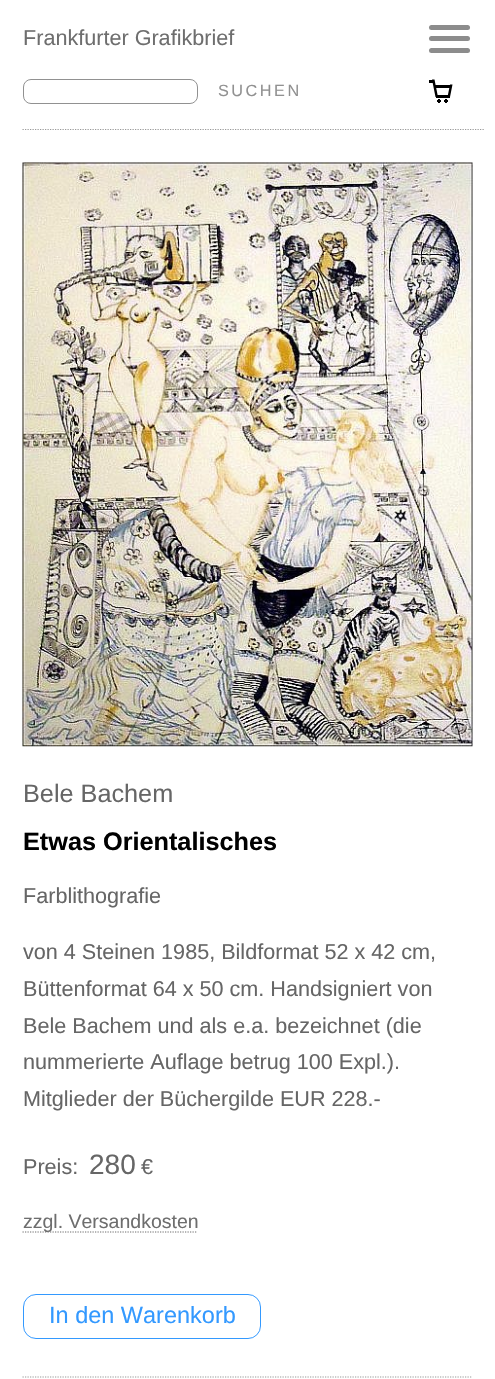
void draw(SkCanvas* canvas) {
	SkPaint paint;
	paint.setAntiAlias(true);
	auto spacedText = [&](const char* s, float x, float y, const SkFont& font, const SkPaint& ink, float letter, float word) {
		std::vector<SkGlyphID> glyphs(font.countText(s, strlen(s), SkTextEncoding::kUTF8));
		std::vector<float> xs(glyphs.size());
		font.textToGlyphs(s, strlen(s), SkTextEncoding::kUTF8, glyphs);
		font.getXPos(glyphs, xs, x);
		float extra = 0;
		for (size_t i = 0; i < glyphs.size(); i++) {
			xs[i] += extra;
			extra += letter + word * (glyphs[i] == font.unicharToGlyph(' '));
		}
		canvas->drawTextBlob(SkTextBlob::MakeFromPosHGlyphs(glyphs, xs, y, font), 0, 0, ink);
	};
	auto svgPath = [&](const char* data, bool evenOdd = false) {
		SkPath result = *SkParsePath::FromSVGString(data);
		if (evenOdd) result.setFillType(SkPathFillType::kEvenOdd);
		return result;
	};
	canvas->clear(0xffffffff);
	paint.setStroke(true);
	paint.setStrokeWidth(1.2);
	paint.setColor(0xff999999);
	paint.setPathEffect(SkDashPathEffect::Make({{1.25f, 1.25f}}, 0));
	canvas->drawPath(svgPath("M22.5 129.5H485"), paint);
	paint.setPathEffect(nullptr);
	SkFont f1(fontMgr->matchFamilyStyle("Liberation Sans", SkFontStyle::Normal()), 21.6);
	f1.setSubpixel(true);
	paint.setStroke(false);
	paint.setColor(0xff6e6e6e);
	canvas->drawString("Frankfurter Grafikbrief", 23, 45, f1, paint);
	paint.setColor(0xff8c8c8c);
	canvas->drawRoundRect(SkRect::MakeXYWH(429, 25, 41, 5), 2.5, 2.5, paint);
	canvas->drawRoundRect(SkRect::MakeXYWH(429, 36, 41, 5), 2.5, 2.5, paint);
	canvas->drawRoundRect(SkRect::MakeXYWH(429, 48, 41, 5), 2.5, 2.5, paint);
	paint.setStroke(true);
	paint.setStrokeWidth(1);
	paint.setColor(0xff919191);
	canvas->drawRoundRect(SkRect::MakeXYWH(23.5, 79.5, 174, 24), 7.5, 7.5, paint);
	SkFont f2(fontMgr->matchFamilyStyle("Liberation Sans", SkFontStyle::Normal()), 16.25);
	f2.setSubpixel(true);
	paint.setStroke(false);
	spacedText("SUCHEN", 218, 96, f2, paint, 2.5, 0);
	{
		const SkColor colors[] = {0xff000000, 0xffffffff};
		const float stops[] = {0.6, 0.6};
		paint.setShader(SkGradientShader::MakeRadial({439, 101}, 3.5, colors, stops, 2, SkTileMode::kClamp));
		paint.setAlpha(255);
	}
	canvas->drawRect(SkRect::MakeXYWH(436, 99, 5, 4), paint);
	{
		const SkColor colors[] = {0xff000000, 0xffffffff};
		const float stops[] = {0.6, 0.6};
		paint.setShader(SkGradientShader::MakeRadial({446, 101}, 3.5, colors, stops, 2, SkTileMode::kClamp));
		paint.setAlpha(255);
	}
	canvas->drawRect(SkRect::MakeXYWH(444, 99, 5, 4), paint);
	paint.setShader(nullptr);
	paint.setColor(0xff000000);
	canvas->drawRect(SkRect::MakeXYWH(429, 80, 5, 3), paint);
	canvas->drawRect(SkRect::MakeXYWH(436, 95, 14, 3), paint);
	canvas->drawRect(SkRect::MakeXYWH(435, 85, 15, 3), paint);
	canvas->drawPath(svgPath("M432 79.5H434.5L438 97H435.5ZM450 84.5H452.5L450 97H447.5Z"), paint);
	canvas->drawImageRect(SkImages::DeferredFromEncodedData(SkData::MakeFromFileName("img1.png")), SkRect::MakeXYWH(22, 162, 451, 585), SkSamplingOptions());
	SkFont f3(fontMgr->matchFamilyStyle("Liberation Sans", SkFontStyle::Normal()), 25.25);
	f3.setSubpixel(true);
	paint.setColor(0xff666666);
	canvas->drawString("Bele Bachem", 23, 802, f3, paint);
	SkFont f4(fontMgr->matchFamilyStyle("Liberation Sans", SkFontStyle::Bold()), 25.25);
	f4.setSubpixel(true);
	paint.setColor(0xff000000);
	canvas->drawString("Etwas Orientalisches", 23, 850, f4, paint);
	paint.setColor(0xff666666);
	canvas->drawString("Farblithografie", 23, 903, f1, paint);
	canvas->drawString("von 4 Steinen 1985, Bildformat 52 x 42 cm,", 23, 959, f1, paint);
	canvas->drawString("Büttenformat 64 x 50 cm. Handsigniert von", 23, 996, f1, paint);
	canvas->drawString("Bele Bachem und als e.a. bezeichnet (die", 23, 1033, f1, paint);
	canvas->drawString("nummerierte Auflage betrug 100 Expl.).", 23, 1069, f1, paint);
	canvas->drawString("Mitglieder der Büchergilde EUR 228.-", 23, 1106, f1, paint);
	paint.setStroke(true);
	paint.setStrokeWidth(1.2);
	paint.setColor(0xff999999);
	paint.setPathEffect(SkDashPathEffect::Make({{1.25f, 1.25f}}, 0));
	canvas->drawPath(svgPath("M22.5 1377H472.5"), paint);
	paint.setPathEffect(nullptr);
	paint.setStroke(false);
	paint.setColor(0xff666666);
	canvas->drawString("Preis:", 23, 1174, f1, paint);
	SkFont f5(fontMgr->matchFamilyStyle("Liberation Sans", SkFontStyle::Normal()), 28);
	f5.setSubpixel(true);
	canvas->drawString("280", 89, 1174, f5, paint);
	canvas->drawString("€", 141, 1174, f1, paint);
	paint.setStroke(true);
	paint.setColor(0xff6e6e6e);
	paint.setPathEffect(SkDashPathEffect::Make({{1.25f, 1.25f}}, 0));
	canvas->drawPath(svgPath("M22.5 1232H197.5"), paint);
	paint.setPathEffect(nullptr);
	SkFont f6(fontMgr->matchFamilyStyle("Liberation Sans", SkFontStyle::Normal()), 19.5);
	f6.setSubpixel(true);
	paint.setStroke(false);
	canvas->drawString("zzgl. Versandkosten", 23, 1228, f6, paint);
	paint.setStroke(true);
	paint.setStrokeWidth(1);
	paint.setColor(0xff3399ff);
	canvas->drawRoundRect(SkRect::MakeXYWH(23.5, 1294.5, 237, 44), 12.5, 12.5, paint);
	SkFont f7(fontMgr->matchFamilyStyle("Liberation Sans", SkFontStyle::Normal()), 23.5);
	f7.setSubpixel(true);
	paint.setStroke(false);
	canvas->drawString("In den Warenkorb", 49, 1323, f7, paint);
}
